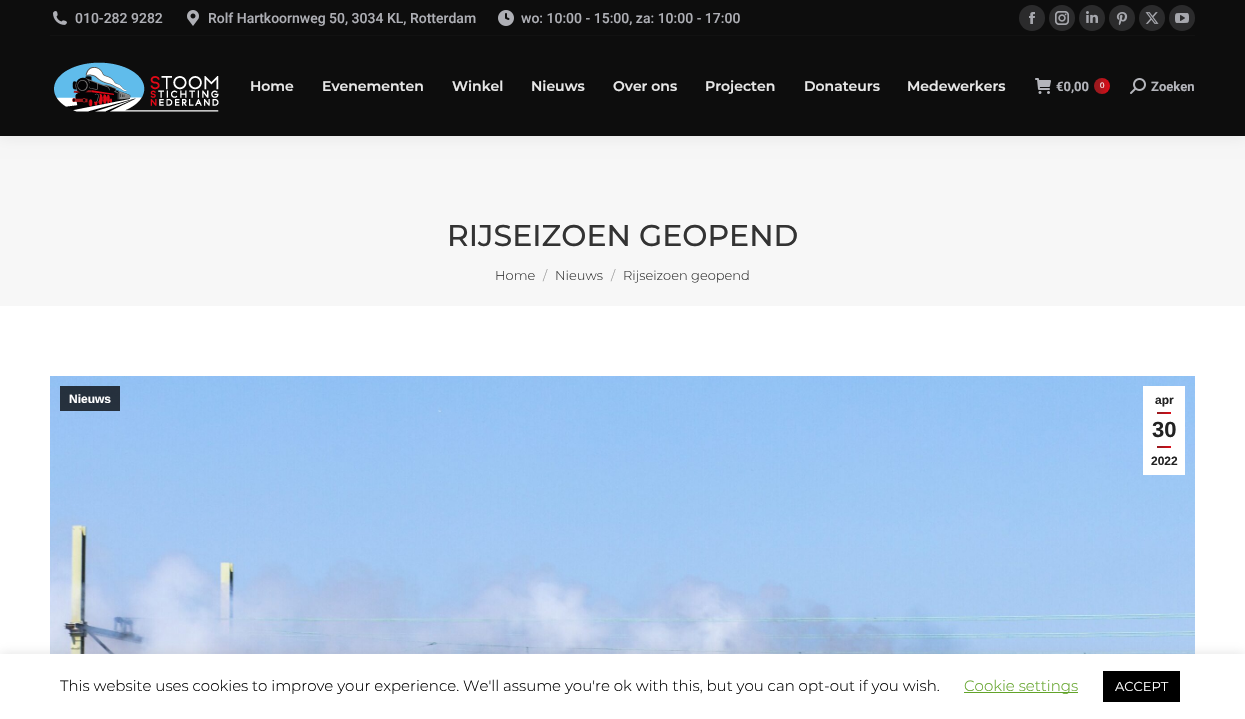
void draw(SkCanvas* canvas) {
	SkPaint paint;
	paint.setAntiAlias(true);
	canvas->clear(0xffffffff);
	paint.setColor(0xfff7f7f7);
	canvas->drawRect(SkRect::MakeXYWH(0, 136, 1245, 170), paint);
	paint.setColor(0x12000000);
	paint.setMaskFilter(SkMaskFilter::MakeBlur(kNormal_SkBlurStyle, 7.5));
	canvas->drawRect(SkRect::MakeXYWH(-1, -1, 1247, 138), paint);
	paint.setMaskFilter(nullptr);
	paint.setColor(0xff0d0d0d);
	canvas->drawRect(SkRect::MakeXYWH(0, 0, 1245, 136), paint);
	canvas->drawImageRect(SkImages::DeferredFromEncodedData(SkData::MakeFromFileName("img1.png")), SkRect::MakeXYWH(53, 11, 14, 14), SkSamplingOptions());
	SkFont f1(fontMgr->matchFamilyStyle("Roboto", SkFontStyle(500, SkFontStyle::kNormal_Width, SkFontStyle::kUpright_Slant)), 14);
	f1.setSubpixel(true);
	paint.setColor(0xffaeafb5);
	canvas->drawString("010-282 9282", 75, 23, f1, paint);
	canvas->drawImageRect(SkImages::DeferredFromEncodedData(SkData::MakeFromFileName("img2.png")), SkRect::MakeXYWH(187, 10, 12, 16), SkSamplingOptions());
	canvas->drawString("Rolf Hartkoornweg 50, 3034 KL, Rotterdam", 208, 23, f1, paint);
	canvas->drawImageRect(SkImages::DeferredFromEncodedData(SkData::MakeFromFileName("img3.png")), SkRect::MakeXYWH(498, 10, 16, 16), SkSamplingOptions());
	canvas->drawString("wo: 10:00 - 15:00, za: 10:00 - 17:00", 521, 23, f1, paint);
	paint.setColor(0xff2b2b2c);
	canvas->drawCircle(1032, 18, 13, paint);
	canvas->drawImageRect(SkImages::DeferredFromEncodedData(SkData::MakeFromFileName("img4.png")), SkRect::MakeXYWH(1029, 12, 6, 12), SkSamplingOptions());
	canvas->drawCircle(1062, 18, 13, paint);
	canvas->drawImageRect(SkImages::DeferredFromEncodedData(SkData::MakeFromFileName("img5.png")), SkRect::MakeXYWH(1055, 11, 14, 14), SkSamplingOptions());
	canvas->drawCircle(1092, 18, 13, paint);
	canvas->drawImageRect(SkImages::DeferredFromEncodedData(SkData::MakeFromFileName("img6.png")), SkRect::MakeXYWH(1086, 11, 12, 12), SkSamplingOptions());
	canvas->drawCircle(1122, 18, 13, paint);
	canvas->drawImageRect(SkImages::DeferredFromEncodedData(SkData::MakeFromFileName("img7.png")), SkRect::MakeXYWH(1116, 12, 12, 13), SkSamplingOptions());
	canvas->drawCircle(1152, 18, 13, paint);
	canvas->drawImageRect(SkImages::DeferredFromEncodedData(SkData::MakeFromFileName("img8.png")), SkRect::MakeXYWH(1145, 12, 14, 12), SkSamplingOptions());
	canvas->drawCircle(1182, 18, 13, paint);
	canvas->drawImageRect(SkImages::DeferredFromEncodedData(SkData::MakeFromFileName("img9.png")), SkRect::MakeXYWH(1175, 13, 14, 10), SkSamplingOptions());
	paint.setColor(0xff121212);
	canvas->drawRect(SkRect::MakeXYWH(50, 35, 1145, 1), paint);
	canvas->drawImageRect(SkImages::DeferredFromEncodedData(SkData::MakeFromFileName("img10.png")), SkRect::MakeXYWH(54, 62, 165, 50), SkSamplingOptions());
	SkFont f2(fontMgr->matchFamilyStyle("Montserrat", SkFontStyle(600, SkFontStyle::kNormal_Width, SkFontStyle::kUpright_Slant)), 14);
	f2.setSubpixel(true);
	paint.setColor(0xffe8e8e8);
	canvas->drawString("Home", 250, 91, f2, paint);
	canvas->drawString("Evenementen", 322, 91, f2, paint);
	canvas->drawString("Winkel", 452, 91, f2, paint);
	canvas->drawString("Nieuws", 531, 91, f2, paint);
	canvas->drawString("Over ons", 613, 91, f2, paint);
	canvas->drawString("Projecten", 705, 91, f2, paint);
	canvas->drawString("Donateurs", 804, 91, f2, paint);
	canvas->drawString("Medewerkers", 907, 91, f2, paint);
	canvas->drawImageRect(SkImages::DeferredFromEncodedData(SkData::MakeFromFileName("img11.png")), SkRect::MakeXYWH(1035, 78, 16, 16), SkSamplingOptions());
	SkFont f3(fontMgr->matchFamilyStyle("Roboto", SkFontStyle::Bold()), 13);
	f3.setSubpixel(true);
	paint.setColor(0xffb4b5bb);
	canvas->drawString("€0,00", 1056, 91, f3, paint);
	{
		const SkColor colors[] = {0xff9e191e, 0xffe30b17};
		const float stops[] = {0.3, 1};
		const SkPoint ends[] = {{1094, 86}, {1110, 86}};
		paint.setShader(SkGradientShader::MakeLinear(ends, colors, stops, 2, SkTileMode::kClamp));
		paint.setAlpha(255);
	}
	canvas->drawCircle(1102, 86, 8, paint);
	SkFont f4(fontMgr->matchFamilyStyle("Liberation Sans", SkFontStyle::Normal()), 8);
	f4.setSubpixel(true);
	paint.setShader(nullptr);
	paint.setColor(0xffffffff);
	canvas->drawString("0", 1100, 88, f4, paint);
	canvas->drawImageRect(SkImages::DeferredFromEncodedData(SkData::MakeFromFileName("img12.png")), SkRect::MakeXYWH(1130, 78, 16, 16), SkSamplingOptions());
	paint.setColor(0xffb4b5bb);
	canvas->drawString("Zoeken", 1151, 91, f3, paint);
	SkFont f5(fontMgr->matchFamilyStyle("Montserrat", SkFontStyle(500, SkFontStyle::kNormal_Width, SkFontStyle::kUpright_Slant)), 30);
	f5.setSubpixel(true);
	paint.setColor(0xff333333);
	canvas->drawString("RIJSEIZOEN GEOPEND", 447, 246, f5, paint);
	SkFont f6(fontMgr->matchFamilyStyle("Montserrat", SkFontStyle(300, SkFontStyle::kNormal_Width, SkFontStyle::kUpright_Slant)), 13);
	f6.setSubpixel(true);
	canvas->drawString("Home", 495, 280, f6, paint);
	paint.setColor(0xff959595);
	canvas->drawString("/", 543, 280, f6, paint);
	paint.setColor(0xff333333);
	canvas->drawString("Nieuws", 555, 280, f6, paint);
	paint.setColor(0xff959595);
	canvas->drawString("/", 611, 280, f6, paint);
	paint.setColor(0xff333333);
	canvas->drawString("Rijseizoen geopend", 623, 280, f6, paint);
	canvas->drawImageRect(SkImages::DeferredFromEncodedData(SkData::MakeFromFileName("img13.png")), SkRect::MakeXYWH(50, 376, 1145, 278), SkSamplingOptions());
	paint.setColor(0xbf000000);
	canvas->drawRect(SkRect::MakeXYWH(60, 386, 60, 25), paint);
	SkFont f7(fontMgr->matchFamilyStyle("Liberation Sans", SkFontStyle::Bold()), 12);
	f7.setSubpixel(true);
	paint.setColor(0xffffffff);
	canvas->drawString("Nieuws", 69, 403, f7, paint);
	canvas->drawRect(SkRect::MakeXYWH(1143, 386, 42, 89), paint);
	paint.setColor(0xff222222);
	canvas->drawString("apr", 1155, 404, f7, paint);
	{
		const SkColor colors[] = {0xff9e191e, 0xffe30b17};
		const float stops[] = {0.3, 1};
		const SkPoint ends[] = {{1160, 409}, {1168, 417}};
		paint.setShader(SkGradientShader::MakeLinear(ends, colors, stops, 2, SkTileMode::kClamp));
		paint.setAlpha(255);
	}
	canvas->drawRect(SkRect::MakeXYWH(1157, 412, 14, 2), paint);
	SkFont f8(fontMgr->matchFamilyStyle("Liberation Sans", SkFontStyle::Bold()), 22);
	f8.setSubpixel(true);
	paint.setShader(nullptr);
	paint.setColor(0xff222222);
	canvas->drawString("30", 1152, 437, f8, paint);
	{
		const SkColor colors[] = {0xff9e191e, 0xffe30b17};
		const float stops[] = {0.3, 1};
		const SkPoint ends[] = {{1160, 443}, {1168, 451}};
		paint.setShader(SkGradientShader::MakeLinear(ends, colors, stops, 2, SkTileMode::kClamp));
		paint.setAlpha(255);
	}
	canvas->drawRect(SkRect::MakeXYWH(1157, 446, 14, 2), paint);
	paint.setShader(nullptr);
	paint.setColor(0xff222222);
	canvas->drawString("2022", 1151, 465, f7, paint);
	paint.setColor(0x4dacabab);
	paint.setMaskFilter(SkMaskFilter::MakeBlur(kNormal_SkBlurStyle, 5));
	canvas->drawRect(SkRect::MakeXYWH(0, 653, 1245, 65), paint);
	paint.setMaskFilter(nullptr);
	paint.setColor(0xffffffff);
	canvas->drawRect(SkRect::MakeXYWH(0, 654, 1245, 65), paint);
	SkFont f9(fontMgr->matchFamilyStyle("Montserrat", SkFontStyle(300, SkFontStyle::kNormal_Width, SkFontStyle::kUpright_Slant)), 15);
	f9.setSubpixel(true);
	paint.setColor(0xff000000);
	canvas->drawString("This website uses cookies to improve your experience. We'll assume you're ok with this, but you can opt-out if you wish.", 60, 691, f9, paint);
	paint.setColor(0xff62a329);
	canvas->drawRect(SkRect::MakeXYWH(964, 692, 114, 1), paint);
	canvas->drawString("Cookie settings", 964, 691, f9, paint);
	paint.setColor(0xff000000);
	canvas->drawRect(SkRect::MakeXYWH(1103, 671, 77, 31), paint);
	SkFont f10(fontMgr->matchFamilyStyle("Montserrat", SkFontStyle::Normal()), 13);
	f10.setSubpixel(true);
	paint.setColor(0xffffffff);
	canvas->drawString("ACCEPT", 1115, 691, f10, paint);
}
